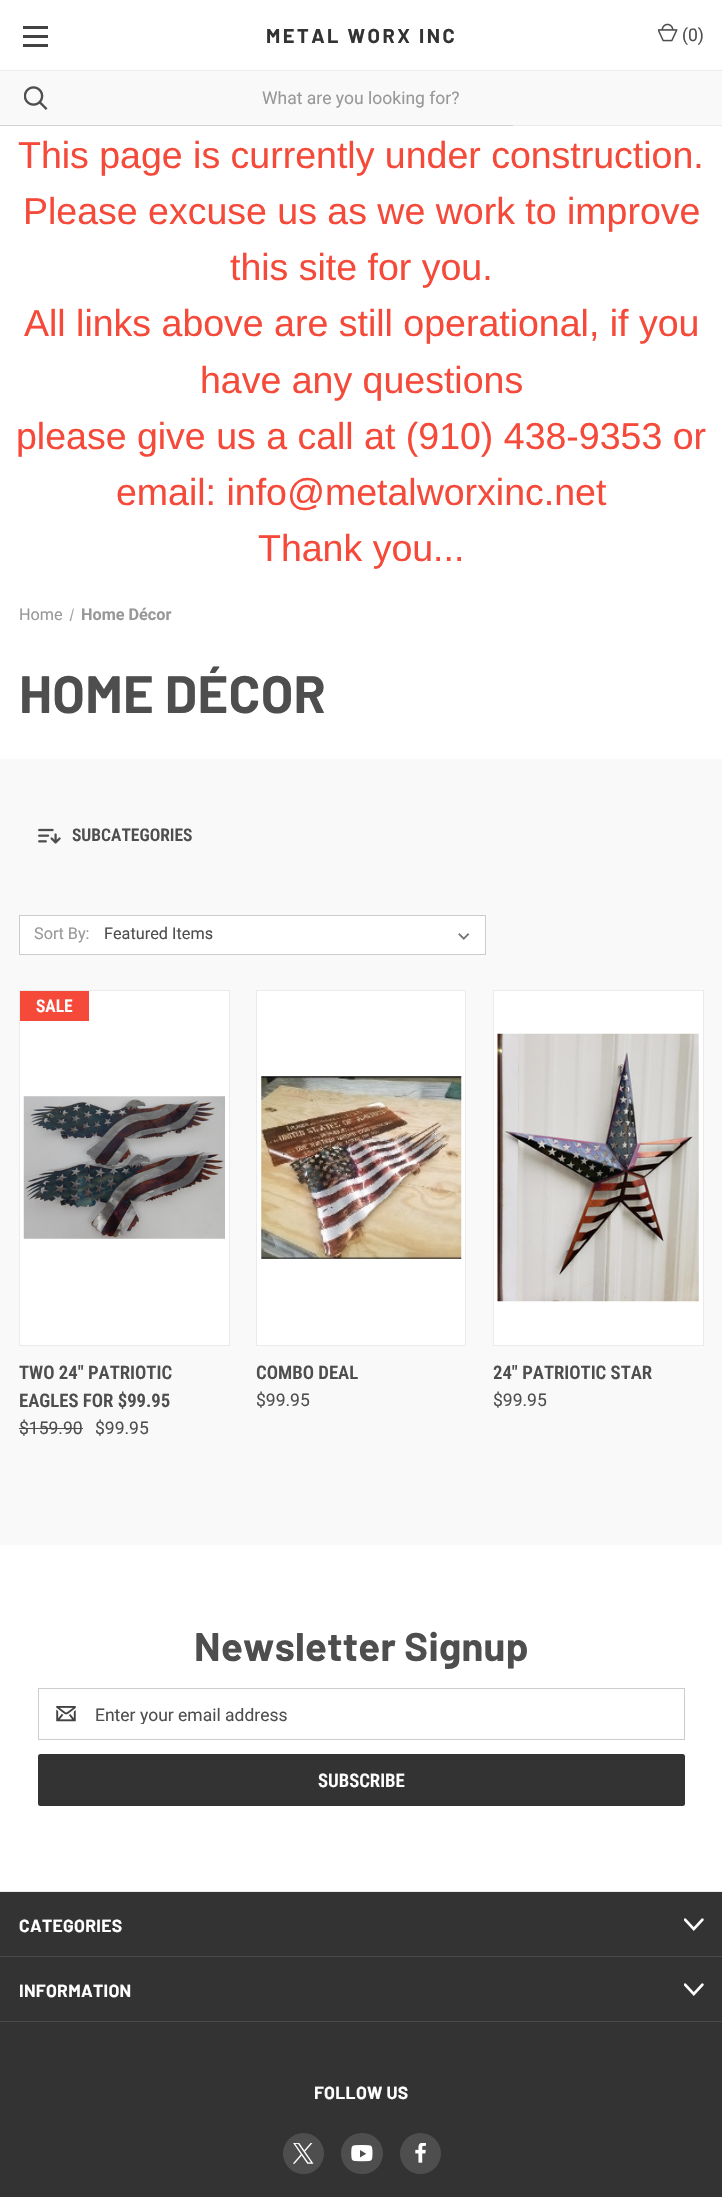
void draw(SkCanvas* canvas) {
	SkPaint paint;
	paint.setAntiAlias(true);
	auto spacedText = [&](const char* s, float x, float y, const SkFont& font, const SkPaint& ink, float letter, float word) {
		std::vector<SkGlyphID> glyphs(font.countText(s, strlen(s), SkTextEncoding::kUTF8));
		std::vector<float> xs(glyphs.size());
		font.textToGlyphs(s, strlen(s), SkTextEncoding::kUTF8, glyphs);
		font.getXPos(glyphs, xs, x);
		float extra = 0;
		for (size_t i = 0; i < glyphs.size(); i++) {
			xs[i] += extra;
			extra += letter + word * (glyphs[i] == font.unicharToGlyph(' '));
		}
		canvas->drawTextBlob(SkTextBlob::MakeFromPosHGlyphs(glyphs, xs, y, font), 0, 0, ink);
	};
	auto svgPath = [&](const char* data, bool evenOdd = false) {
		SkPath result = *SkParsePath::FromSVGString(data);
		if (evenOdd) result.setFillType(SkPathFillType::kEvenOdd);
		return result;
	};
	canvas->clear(0xffffffff);
	paint.setColor(0xffebebeb);
	canvas->drawRect(SkRect::MakeXYWH(513, 125, 209, 1), paint);
	paint.setColor(0xff424242);
	canvas->drawRect(SkRect::MakeXYWH(23, 35, 25, 3), paint);
	canvas->drawRect(SkRect::MakeXYWH(23, 26, 25, 3), paint);
	canvas->drawRect(SkRect::MakeXYWH(23, 44, 25, 3), paint);
	SkFont f1(fontMgr->matchFamilyStyle("Barlow", SkFontStyle::Bold()), 20);
	f1.setSubpixel(true);
	paint.setColor(0xff333333);
	spacedText("METAL WORX INC", 266, 43, f1, paint, 2.5, 0);
	canvas->drawImageRect(SkImages::DeferredFromEncodedData(SkData::MakeFromFileName("img1.png")), SkRect::MakeXYWH(658, 23, 20, 19), SkSamplingOptions());
	SkFont f2(fontMgr->matchFamilyStyle("Roboto", SkFontStyle::Normal()), 17.5);
	f2.setSubpixel(true);
	paint.setColor(0xff4e4e4e);
	canvas->drawString("(0)", 682, 41, f2, paint);
	paint.setColor(0xfff9f9f9);
	canvas->drawRect(SkRect::MakeXYWH(0, 71, 722, 54), paint);
	canvas->drawImageRect(SkImages::DeferredFromEncodedData(SkData::MakeFromFileName("img2.png")), SkRect::MakeXYWH(24, 86, 24, 24), SkSamplingOptions());
	paint.setColor(0xffebebeb);
	canvas->drawRect(SkRect::MakeXYWH(0, 70, 722, 1), paint);
	paint.setColor(0xff989898);
	canvas->drawString("What are you looking for?", 262, 104, f2, paint);
	paint.setColor(0xffd2d2d2);
	canvas->drawRect(SkRect::MakeXYWH(0, 125, 513, 1), paint);
	SkFont f3(fontMgr->matchFamilyStyle("Liberation Sans", SkFontStyle::Normal()), 37.5);
	f3.setSubpixel(true);
	paint.setColor(0xfff54a3a);
	canvas->drawString("This page is currently under construction.", 18, 168, f3, paint);
	canvas->drawString("Please excuse us as we work to improve", 23, 224, f3, paint);
	canvas->drawString("this site for you.", 230, 280, f3, paint);
	canvas->drawString("All links above are still operational, if you", 24, 336, f3, paint);
	canvas->drawString("have any questions", 200, 393, f3, paint);
	canvas->drawString("please give us a call at (910) 438-9353 or", 16, 449, f3, paint);
	canvas->drawString("email: info@metalworxinc.net", 116, 505, f3, paint);
	canvas->drawString("Thank you...", 258, 561, f3, paint);
	SkFont f4(fontMgr->matchFamilyStyle("Roboto", SkFontStyle::Normal()), 16.25);
	f4.setSubpixel(true);
	paint.setColor(0xff989898);
	canvas->drawString("Home", 19, 620, f4, paint);
	paint.setColor(0xffa3a3a3);
	canvas->drawPath(svgPath("M73 608.5H74L71 621H69.5Z"), paint);
	SkFont f5(fontMgr->matchFamilyStyle("Roboto", SkFontStyle::Bold()), 16.25);
	f5.setSubpixel(true);
	paint.setColor(0xff989898);
	canvas->drawString("Home Décor", 81, 620, f5, paint);
	SkFont f6(fontMgr->matchFamilyStyle("Barlow", SkFontStyle::Bold()), 52.5);
	f6.setSubpixel(true);
	paint.setColor(0xff4e4e4e);
	spacedText("HOME DÉCOR", 19, 713, f6, paint, 0.3, 0);
	paint.setColor(0xfff9f9f9);
	canvas->drawRect(SkRect::MakeXYWH(0, 759, 722, 786), paint);
	canvas->drawImageRect(SkImages::DeferredFromEncodedData(SkData::MakeFromFileName("img3.png")), SkRect::MakeXYWH(38, 828, 23, 16), SkSamplingOptions());
	SkFont f7(fontMgr->matchFamilyStyle("Roboto Condensed", SkFontStyle(600, SkFontStyle::kNormal_Width, SkFontStyle::kUpright_Slant)), 17.5);
	f7.setSubpixel(true);
	paint.setColor(0xff4e4e4e);
	canvas->drawString("SUBCATEGORIES", 72, 841, f7, paint);
	paint.setColor(0xffffffff);
	canvas->drawRect(SkRect::MakeXYWH(19.5, 915.5, 466, 39), paint);
	paint.setStroke(true);
	paint.setStrokeWidth(1);
	paint.setColor(0xffcccccc);
	canvas->drawRect(SkRect::MakeXYWH(19.5, 915.5, 466, 39), paint);
	paint.setStroke(false);
	paint.setColor(0xff989898);
	canvas->drawString("Sort By:", 34, 939, f4, paint);
	canvas->drawImageRect(SkImages::DeferredFromEncodedData(SkData::MakeFromFileName("img4.png")), SkRect::MakeXYWH(458, 933, 12, 7), SkSamplingOptions());
	paint.setColor(0xff4e4e4e);
	canvas->drawString("Featured Items", 104, 939, f4, paint);
	paint.setColor(0xffffffff);
	canvas->drawRect(SkRect::MakeXYWH(19.5, 990.5, 210, 355), paint);
	paint.setStroke(true);
	paint.setColor(0xffebebeb);
	canvas->drawRect(SkRect::MakeXYWH(19.5, 990.5, 210, 355), paint);
	paint.setStroke(false);
	paint.setColor(0xfff54a3a);
	canvas->drawRect(SkRect::MakeXYWH(20, 991, 69, 30), paint);
	paint.setColor(0xffffffff);
	canvas->drawString("SALE", 36, 1012, f7, paint);
	canvas->drawImageRect(SkImages::DeferredFromEncodedData(SkData::MakeFromFileName("img5.png")), SkRect::MakeXYWH(23, 1096, 202, 143), SkSamplingOptions());
	SkFont f8(fontMgr->matchFamilyStyle("Roboto Condensed", SkFontStyle(600, SkFontStyle::kNormal_Width, SkFontStyle::kUpright_Slant)), 18.75);
	f8.setSubpixel(true);
	paint.setColor(0xff4e4e4e);
	canvas->drawString("TWO 24\" PATRIOTIC", 19, 1379, f8, paint);
	canvas->drawString("EAGLES FOR $99.95", 19, 1407, f8, paint);
	canvas->drawString("$159.90", 19, 1434, f2, paint);
	canvas->drawRect(SkRect::MakeXYWH(19, 1428, 64, 1), paint);
	canvas->drawString("$99.95", 95, 1434, f2, paint);
	paint.setColor(0xffffffff);
	canvas->drawRect(SkRect::MakeXYWH(256.5, 990.5, 209, 355), paint);
	paint.setStroke(true);
	paint.setColor(0xffebebeb);
	canvas->drawRect(SkRect::MakeXYWH(256.5, 990.5, 209, 355), paint);
	canvas->drawImageRect(SkImages::DeferredFromEncodedData(SkData::MakeFromFileName("img6.png")), SkRect::MakeXYWH(261, 1076, 201, 183), SkSamplingOptions());
	paint.setStroke(false);
	paint.setColor(0xff4e4e4e);
	canvas->drawString("COMBO DEAL", 256, 1379, f8, paint);
	canvas->drawString("$99.95", 256, 1406, f2, paint);
	paint.setColor(0xffffffff);
	canvas->drawRect(SkRect::MakeXYWH(493.5, 990.5, 210, 355), paint);
	paint.setStroke(true);
	paint.setColor(0xffebebeb);
	canvas->drawRect(SkRect::MakeXYWH(493.5, 990.5, 210, 355), paint);
	canvas->drawImageRect(SkImages::DeferredFromEncodedData(SkData::MakeFromFileName("img7.png")), SkRect::MakeXYWH(497, 1033, 202, 269), SkSamplingOptions());
	paint.setStroke(false);
	paint.setColor(0xff4e4e4e);
	canvas->drawString("24\" PATRIOTIC STAR", 493, 1379, f8, paint);
	canvas->drawString("$99.95", 493, 1406, f2, paint);
	SkFont f9(fontMgr->matchFamilyStyle("Barlow", SkFontStyle::Bold()), 40);
	f9.setSubpixel(true);
	spacedText("Newsletter Signup", 194, 1661, f9, paint, 0.3, 0);
	paint.setStroke(true);
	paint.setColor(0xffcccccc);
	canvas->drawRect(SkRect::MakeXYWH(38.5, 1688.5, 646, 51), paint);
	canvas->drawImageRect(SkImages::DeferredFromEncodedData(SkData::MakeFromFileName("img8.png")), SkRect::MakeXYWH(56, 1706, 20, 16), SkSamplingOptions());
	canvas->save();
	canvas->clipRect(SkRect::MakeXYWH(95, 1704, 571, 20));
	paint.setStroke(false);
	paint.setColor(0xff4e4e4e);
	canvas->drawString("Enter your email address", 95, 1721, f2, paint);
	canvas->restore();
	paint.setColor(0xff333333);
	canvas->drawRoundRect(SkRect::MakeXYWH(38, 1754, 647, 52), 2.5, 2.5, paint);
	paint.setColor(0xffffffff);
	canvas->drawString("SUBSCRIBE", 318, 1787, f8, paint);
	paint.setColor(0xff333333);
	canvas->drawRect(SkRect::MakeXYWH(0, 1892, 722, 305), paint);
	paint.setColor(0xffebebeb);
	canvas->drawRect(SkRect::MakeXYWH(0, 1891, 722, 1), paint);
	paint.setColor(0xff4a4a4a);
	canvas->drawRect(SkRect::MakeXYWH(0, 1956, 722, 1), paint);
	SkFont f10(fontMgr->matchFamilyStyle("Barlow", SkFontStyle::Bold()), 17.5);
	f10.setSubpixel(true);
	paint.setColor(0xffffffff);
	spacedText("CATEGORIES", 19, 1932, f10, paint, 0.3, 0);
	canvas->drawImageRect(SkImages::DeferredFromEncodedData(SkData::MakeFromFileName("img9.png")), SkRect::MakeXYWH(684, 1918, 20, 13), SkSamplingOptions());
	paint.setColor(0xff4a4a4a);
	canvas->drawRect(SkRect::MakeXYWH(0, 2021, 722, 1), paint);
	paint.setColor(0xffffffff);
	spacedText("INFORMATION", 19, 1997, f10, paint, 0.3, 0);
	canvas->drawImageRect(SkImages::DeferredFromEncodedData(SkData::MakeFromFileName("img9.png")), SkRect::MakeXYWH(684, 1983, 20, 13), SkSamplingOptions());
	spacedText("FOLLOW US", 314, 2099, f10, paint, 0.3, 0);
	paint.setColor(0xff4e4e4e);
	canvas->drawCircle(303.5, 2153.5, 20.5, paint);
	canvas->drawImageRect(SkImages::DeferredFromEncodedData(SkData::MakeFromFileName("img10.png")), SkRect::MakeXYWH(293, 2143, 21, 21), SkSamplingOptions());
	canvas->drawRoundRect(SkRect::MakeXYWH(341, 2133, 42, 41), 20.5, 20.5, paint);
	canvas->drawImageRect(SkImages::DeferredFromEncodedData(SkData::MakeFromFileName("img11.png")), SkRect::MakeXYWH(351, 2145, 22, 17), SkSamplingOptions());
	canvas->drawCircle(420.5, 2153.5, 20.5, paint);
	canvas->drawImageRect(SkImages::DeferredFromEncodedData(SkData::MakeFromFileName("img12.png")), SkRect::MakeXYWH(415, 2143, 11, 20), SkSamplingOptions());
}
